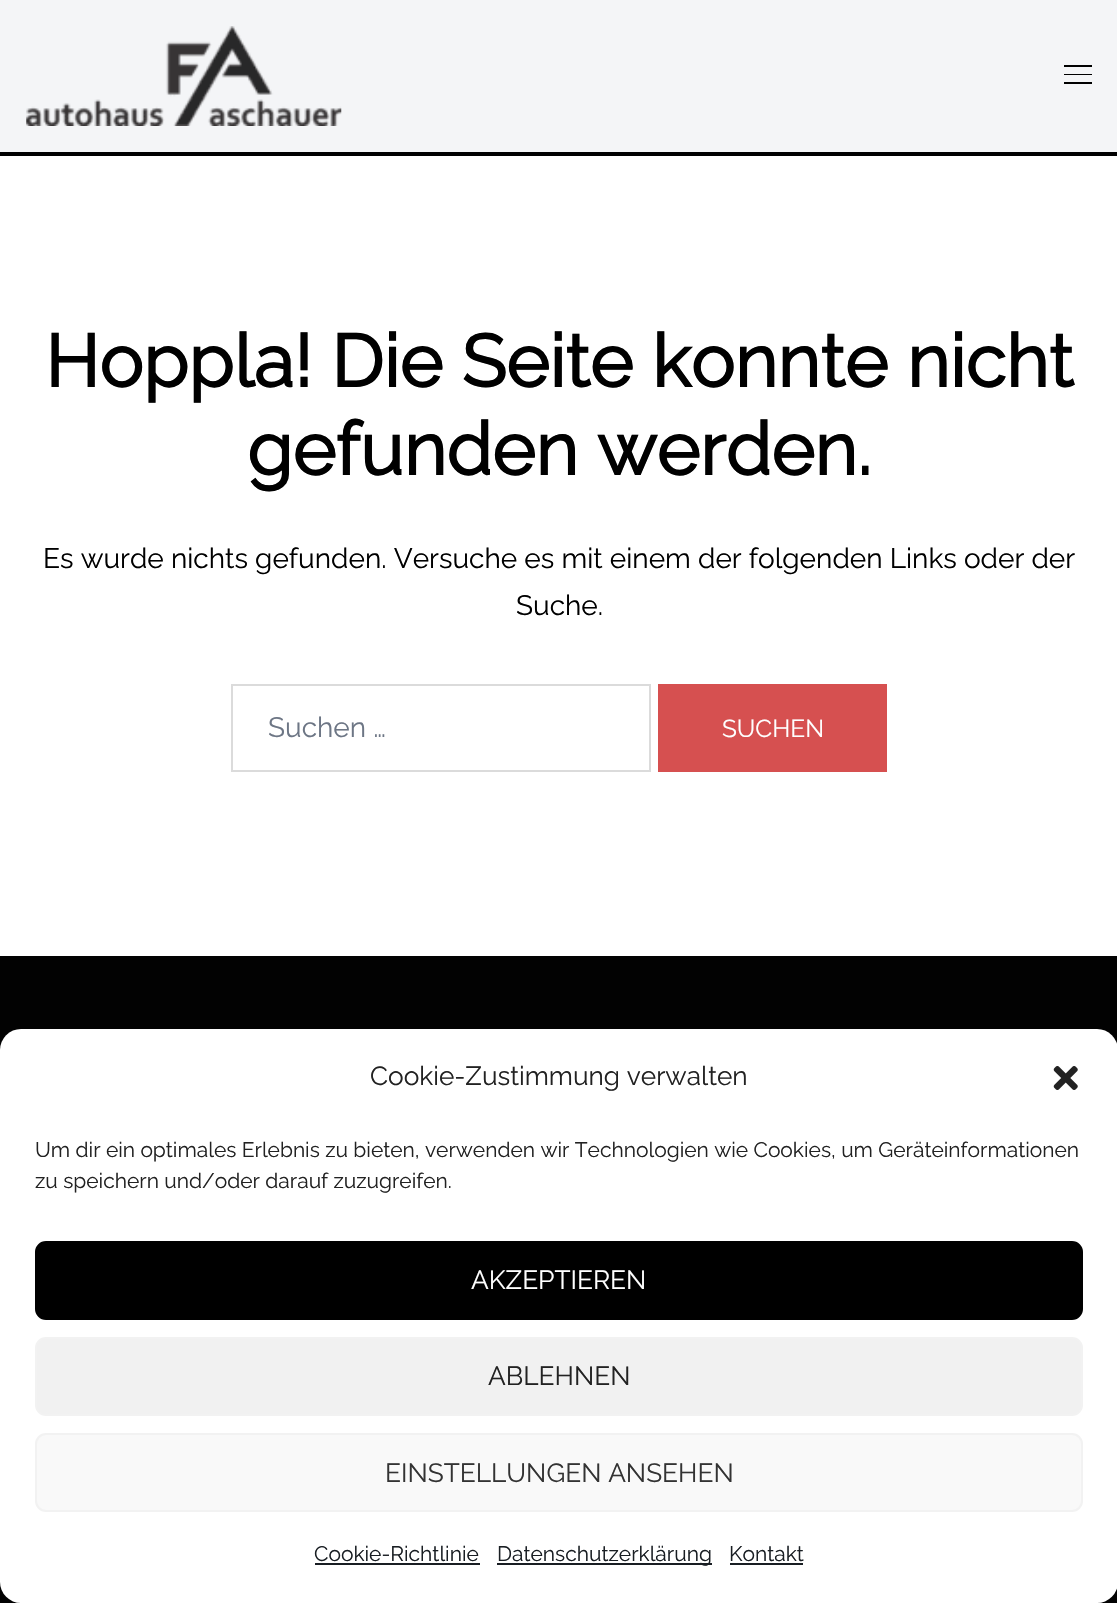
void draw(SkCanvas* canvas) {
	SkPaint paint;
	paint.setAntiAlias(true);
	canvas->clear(0xffffffff);
	paint.setColor(0xfff4f5f7);
	canvas->drawRect(SkRect::MakeXYWH(0, 0, 1117, 152), paint);
	paint.setColor(0xff000000);
	canvas->drawRect(SkRect::MakeXYWH(0, 152, 1117, 4), paint);
	canvas->drawImageRect(SkImages::DeferredFromEncodedData(SkData::MakeFromFileName("img1.png")), SkRect::MakeXYWH(26, 26, 316, 100), SkSamplingOptions());
	canvas->drawRect(SkRect::MakeXYWH(1064, 65, 28, 2), paint);
	canvas->drawRect(SkRect::MakeXYWH(1064, 74, 28, 1), paint);
	canvas->drawRect(SkRect::MakeXYWH(1064, 82, 28, 2), paint);
	SkFont f1(fontMgr->matchFamilyStyle("Raleway", SkFontStyle::Bold()), 73.5);
	f1.setSubpixel(true);
	canvas->drawString("Hoppla! Die Seite konnte nicht", 45, 387, f1, paint);
	canvas->drawString("gefunden werden.", 247, 475, f1, paint);
	SkFont f2(fontMgr->matchFamilyStyle("Raleway", SkFontStyle(100, SkFontStyle::kNormal_Width, SkFontStyle::kUpright_Slant)), 28);
	f2.setSubpixel(true);
	canvas->drawString("Es wurde nichts gefunden. Versuche es mit einem der folgenden Links oder der", 43, 568, f2, paint);
	canvas->drawString("Suche.", 516, 615, f2, paint);
	paint.setStroke(true);
	paint.setStrokeWidth(2);
	paint.setColor(0xffdbdbdb);
	canvas->drawRect(SkRect::MakeXYWH(232, 685, 418, 86), paint);
	paint.setStroke(false);
	paint.setColor(0xff6d7685);
	canvas->drawString("Suchen …", 268, 737, f2, paint);
	paint.setColor(0xffd65050);
	canvas->drawRect(SkRect::MakeXYWH(658, 684, 229, 88), paint);
	SkFont f3(fontMgr->matchFamilyStyle("Raleway", SkFontStyle(100, SkFontStyle::kNormal_Width, SkFontStyle::kUpright_Slant)), 24.5);
	f3.setSubpixel(true);
	paint.setColor(0xffffffff);
	canvas->drawString("SUCHEN", 722, 737, f3, paint);
	paint.setColor(0xff020202);
	canvas->drawRect(SkRect::MakeXYWH(0, 956, 1117, 647), paint);
	paint.setColor(0xffffffff);
	canvas->drawRoundRect(SkRect::MakeXYWH(0, 1029, 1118, 574), 21, 21, paint);
	SkFont f4(fontMgr->matchFamilyStyle("Raleway", SkFontStyle(100, SkFontStyle::kNormal_Width, SkFontStyle::kUpright_Slant)), 26.25);
	f4.setSubpixel(true);
	paint.setColor(0xff222222);
	canvas->drawString("Cookie-Zustimmung verwalten", 370, 1085, f4, paint);
	canvas->drawImageRect(SkImages::DeferredFromEncodedData(SkData::MakeFromFileName("img2.png")), SkRect::MakeXYWH(1053, 1066, 25, 24), SkSamplingOptions());
	SkFont f5(fontMgr->matchFamilyStyle("Raleway", SkFontStyle(100, SkFontStyle::kNormal_Width, SkFontStyle::kUpright_Slant)), 21);
	f5.setSubpixel(true);
	canvas->drawString("Um dir ein optimales Erlebnis zu bieten, verwenden wir Technologien wie Cookies, um Geräteinformationen", 35, 1157, f5, paint);
	canvas->drawString("zu speichern und/oder darauf zuzugreifen.", 35, 1188, f5, paint);
	paint.setColor(0xff000000);
	canvas->drawRoundRect(SkRect::MakeXYWH(36, 1242, 1046, 77), 10, 10, paint);
	paint.setStroke(true);
	canvas->drawRoundRect(SkRect::MakeXYWH(36, 1242, 1046, 77), 10, 10, paint);
	paint.setStroke(false);
	paint.setColor(0xffffffff);
	canvas->drawString("AKZEPTIEREN", 471, 1289, f4, paint);
	paint.setColor(0xfff1f1f1);
	canvas->drawRoundRect(SkRect::MakeXYWH(36, 1338, 1046, 77), 10, 10, paint);
	paint.setStroke(true);
	paint.setColor(0xfff2f2f2);
	canvas->drawRoundRect(SkRect::MakeXYWH(36, 1338, 1046, 77), 10, 10, paint);
	paint.setStroke(false);
	paint.setColor(0xff222222);
	canvas->drawString("ABLEHNEN", 488, 1385, f4, paint);
	paint.setColor(0xfff9f9f9);
	canvas->drawRoundRect(SkRect::MakeXYWH(36, 1434, 1046, 77), 10, 10, paint);
	paint.setStroke(true);
	paint.setColor(0xfff2f2f2);
	canvas->drawRoundRect(SkRect::MakeXYWH(36, 1434, 1046, 77), 10, 10, paint);
	paint.setStroke(false);
	paint.setColor(0xff333333);
	canvas->drawString("EINSTELLUNGEN ANSEHEN", 385, 1482, f4, paint);
	paint.setColor(0xff191e23);
	canvas->drawString("Cookie-Richtlinie", 314, 1561, f5, paint);
	canvas->drawRect(SkRect::MakeXYWH(315, 1563, 165, 2), paint);
	canvas->drawRect(SkRect::MakeXYWH(497, 1563, 215, 2), paint);
	canvas->drawString("Datenschutzerklärung", 497, 1561, f5, paint);
	canvas->drawString("Kontakt", 729, 1561, f5, paint);
	canvas->drawRect(SkRect::MakeXYWH(730, 1563, 73, 2), paint);
}
